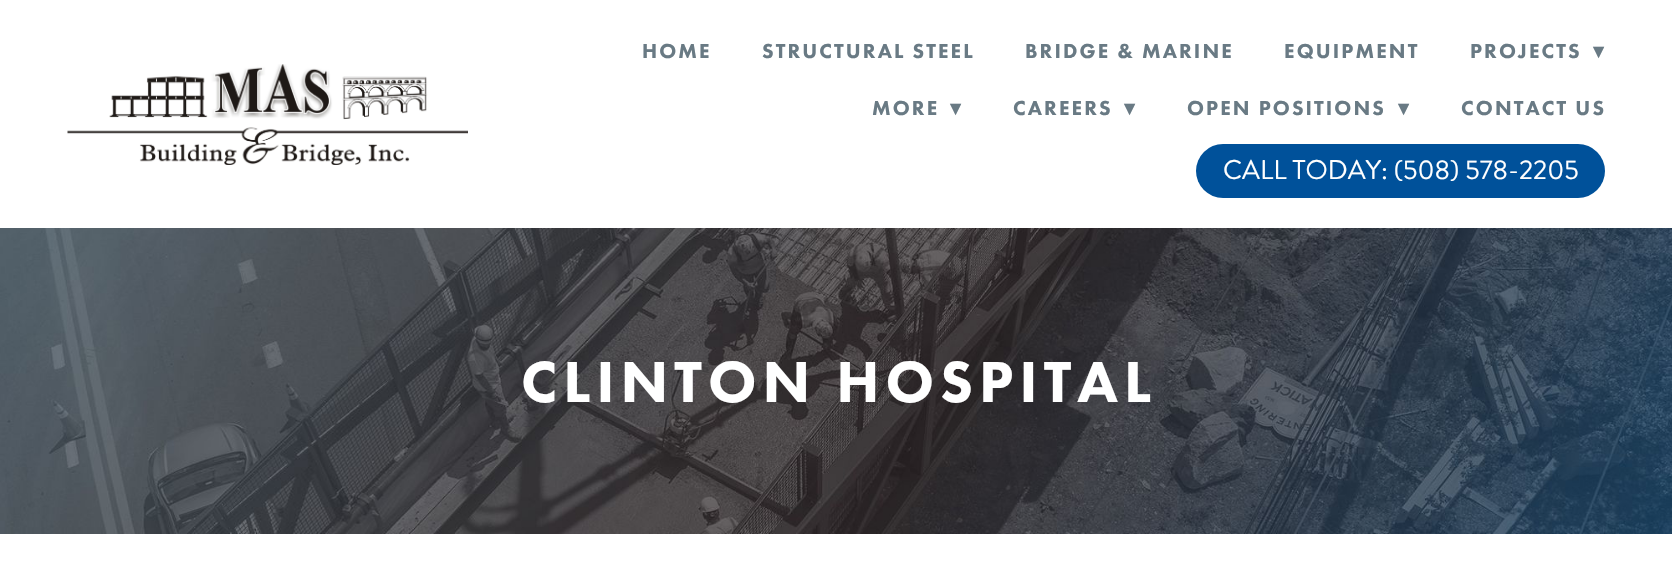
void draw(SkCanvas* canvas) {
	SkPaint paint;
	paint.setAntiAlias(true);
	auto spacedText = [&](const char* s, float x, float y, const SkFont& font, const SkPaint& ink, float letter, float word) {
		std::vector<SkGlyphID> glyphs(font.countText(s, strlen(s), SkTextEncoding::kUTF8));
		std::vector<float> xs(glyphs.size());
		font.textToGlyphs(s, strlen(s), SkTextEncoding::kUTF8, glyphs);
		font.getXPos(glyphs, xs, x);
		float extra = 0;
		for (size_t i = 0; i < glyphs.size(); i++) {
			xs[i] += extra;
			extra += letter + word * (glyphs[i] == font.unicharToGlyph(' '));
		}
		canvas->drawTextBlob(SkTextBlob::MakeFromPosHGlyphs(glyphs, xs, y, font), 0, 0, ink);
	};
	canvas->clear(0xffffffff);
	canvas->drawImageRect(SkImages::DeferredFromEncodedData(SkData::MakeFromFileName("img1.png")), SkRect::MakeXYWH(67, 64, 401, 101), SkSamplingOptions());
	SkFont f1(fontMgr->matchFamilyStyle("Futura PT", SkFontStyle(900, SkFontStyle::kNormal_Width, SkFontStyle::kUpright_Slant)), 21);
	f1.setSubpixel(true);
	paint.setColor(0xff697a84);
	spacedText("HOME", 642, 58, f1, paint, 2.1, 0);
	spacedText("STRUCTURAL STEEL", 762, 58, f1, paint, 2.1, 0);
	spacedText("BRIDGE & MARINE", 1025, 58, f1, paint, 2.1, 0);
	spacedText("EQUIPMENT", 1284, 58, f1, paint, 2.1, 0);
	spacedText("PROJECTS", 1470, 58, f1, paint, 2.1, 0);
	SkFont f2(fontMgr->matchFamilyStyle("DejaVu Sans", SkFontStyle::Bold()), 21);
	f2.setSubpixel(true);
	spacedText("▾", 1593, 58, f2, paint, 2.1, 0);
	spacedText("MORE", 872, 115, f1, paint, 2.1, 0);
	spacedText("▾", 950, 115, f2, paint, 2.1, 0);
	spacedText("CAREERS", 1013, 115, f1, paint, 2.1, 0);
	spacedText("▾", 1124, 115, f2, paint, 2.1, 0);
	spacedText("OPEN POSITIONS", 1187, 115, f1, paint, 2.1, 0);
	spacedText("▾", 1398, 115, f2, paint, 2.1, 0);
	spacedText("CONTACT US", 1461, 115, f1, paint, 2.1, 0);
	paint.setColor(0xff00519a);
	canvas->drawRoundRect(SkRect::MakeXYWH(1196, 144, 409, 54), 27, 27, paint);
	SkFont f3(fontMgr->matchFamilyStyle("Brandon Grotesque", SkFontStyle::Normal()), 27);
	f3.setSubpixel(true);
	paint.setColor(0xffffffff);
	canvas->drawString("CALL TODAY: (508) 578-2205", 1223, 179, f3, paint);
	canvas->drawImageRect(SkImages::DeferredFromEncodedData(SkData::MakeFromFileName("img2.png")), SkRect::MakeXYWH(0, 228, 1672, 306), SkSamplingOptions());
	SkFont f4(fontMgr->matchFamilyStyle("Futura PT", SkFontStyle(900, SkFontStyle::kNormal_Width, SkFontStyle::kUpright_Slant)), 60);
	f4.setSubpixel(true);
	spacedText("CLINTON HOSPITAL", 521, 402, f4, paint, 6, 0);
}
